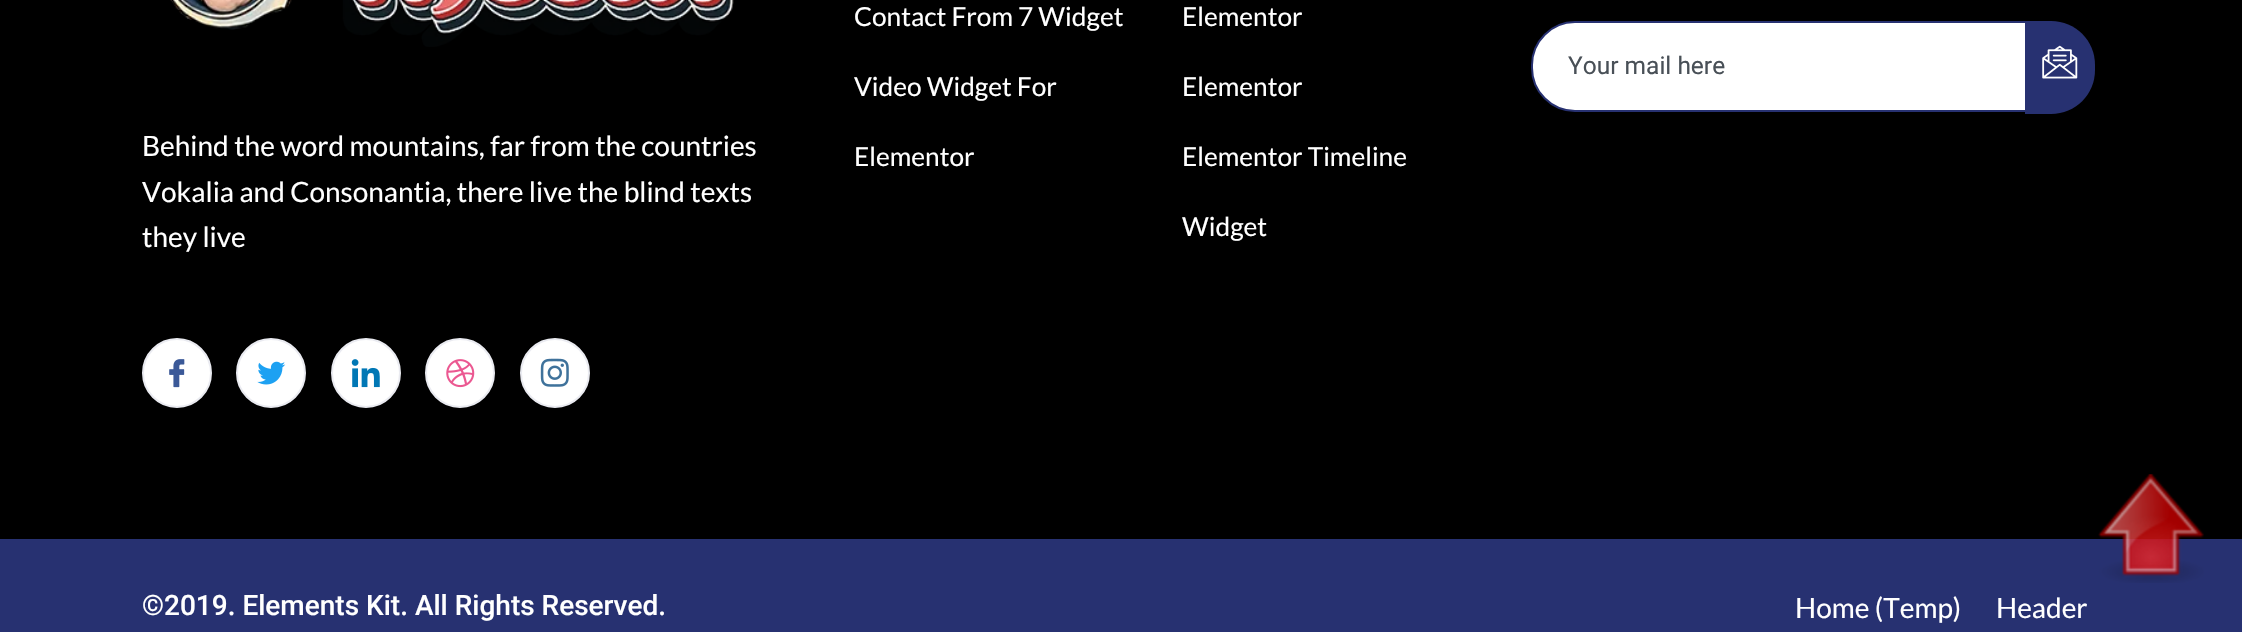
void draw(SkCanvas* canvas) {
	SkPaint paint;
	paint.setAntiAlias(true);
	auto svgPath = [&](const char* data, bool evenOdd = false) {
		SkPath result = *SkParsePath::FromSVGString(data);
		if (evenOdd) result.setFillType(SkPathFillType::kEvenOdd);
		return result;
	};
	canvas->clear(0xff000000);
	SkFont f1(fontMgr->matchFamilyStyle("Lato", SkFontStyle::Normal()), 26.25);
	f1.setSubpixel(true);
	paint.setColor(0xffffffff);
	canvas->drawString("Contact From 7 Widget", 854, 26, f1, paint);
	canvas->drawString("Video Widget For", 854, 96, f1, paint);
	canvas->drawString("Elementor", 854, 166, f1, paint);
	canvas->drawString("Elementor", 1182, 26, f1, paint);
	canvas->drawString("Elementor", 1182, 96, f1, paint);
	canvas->drawString("Elementor Timeline", 1182, 166, f1, paint);
	canvas->drawString("Widget", 1182, 236, f1, paint);
	canvas->drawPath(svgPath("M1575 22H2027V111H1575C1551.5 111 1532 91.5 1532 68V65C1532 41.5 1551.5 22 1575 22Z"), paint);
	paint.setStroke(true);
	paint.setStrokeWidth(2);
	paint.setColor(0xff273171);
	canvas->drawPath(svgPath("M1575 22H2027V111H1575C1551.5 111 1532 91.5 1532 68V65C1532 41.5 1551.5 22 1575 22Z"), paint);
	SkFont f2(fontMgr->matchFamilyStyle("Roboto", SkFontStyle::Normal()), 24.5);
	f2.setSubpixel(true);
	paint.setStroke(false);
	paint.setColor(0xff495057);
	canvas->drawString("Your mail here", 1568, 74, f2, paint);
	paint.setColor(0xff273171);
	canvas->drawPath(svgPath("M2025 21H2051C2075.5 21 2095 40.5 2095 65V70C2095 94.5 2075.5 114 2051 114H2025Z"), paint);
	canvas->drawImageRect(SkImages::DeferredFromEncodedData(SkData::MakeFromFileName("img1.png")), SkRect::MakeXYWH(2042, 45, 36, 34), SkSamplingOptions());
	canvas->drawImageRect(SkImages::DeferredFromEncodedData(SkData::MakeFromFileName("img2.png")), SkRect::MakeXYWH(170, 0, 564, 47), SkSamplingOptions());
	SkFont f3(fontMgr->matchFamilyStyle("Lato", SkFontStyle::Normal()), 28);
	f3.setSubpixel(true);
	paint.setColor(0xffffffff);
	canvas->drawString("Behind the word mountains, far from the countries", 142, 156, f3, paint);
	canvas->drawString("Vokalia and Consonantia, there live the blind texts", 142, 202, f3, paint);
	canvas->drawString("they live", 142, 247, f3, paint);
	canvas->drawCircle(177, 373, 34, paint);
	paint.setStroke(true);
	paint.setColor(0xffeaebf1);
	canvas->drawCircle(177, 373, 34, paint);
	canvas->drawImageRect(SkImages::DeferredFromEncodedData(SkData::MakeFromFileName("img3.png")), SkRect::MakeXYWH(169, 359, 16, 29), SkSamplingOptions());
	paint.setStroke(false);
	paint.setColor(0xffffffff);
	canvas->drawCircle(271, 373, 34, paint);
	paint.setStroke(true);
	paint.setColor(0xffeaebf1);
	canvas->drawCircle(271, 373, 34, paint);
	canvas->drawImageRect(SkImages::DeferredFromEncodedData(SkData::MakeFromFileName("img4.png")), SkRect::MakeXYWH(257, 361, 29, 24), SkSamplingOptions());
	paint.setStroke(false);
	paint.setColor(0xffffffff);
	canvas->drawCircle(366, 373, 34, paint);
	paint.setStroke(true);
	paint.setColor(0xffeaebf1);
	canvas->drawCircle(366, 373, 34, paint);
	canvas->drawImageRect(SkImages::DeferredFromEncodedData(SkData::MakeFromFileName("img5.png")), SkRect::MakeXYWH(351, 359, 29, 29), SkSamplingOptions());
	paint.setStroke(false);
	paint.setColor(0xffffffff);
	canvas->drawCircle(460, 373, 34, paint);
	paint.setStroke(true);
	paint.setColor(0xffeaebf1);
	canvas->drawCircle(460, 373, 34, paint);
	canvas->drawImageRect(SkImages::DeferredFromEncodedData(SkData::MakeFromFileName("img6.png")), SkRect::MakeXYWH(446, 359, 29, 29), SkSamplingOptions());
	paint.setStroke(false);
	paint.setColor(0xffffffff);
	canvas->drawCircle(555, 373, 34, paint);
	paint.setStroke(true);
	paint.setColor(0xffeaebf1);
	canvas->drawCircle(555, 373, 34, paint);
	canvas->drawImageRect(SkImages::DeferredFromEncodedData(SkData::MakeFromFileName("img7.png")), SkRect::MakeXYWH(540, 358, 29, 29), SkSamplingOptions());
	paint.setStroke(false);
	paint.setColor(0xff273171);
	canvas->drawRect(SkRect::MakeXYWH(0, 539, 2242, 93), paint);
	SkFont f4(fontMgr->matchFamilyStyle("Roboto", SkFontStyle(500, SkFontStyle::kNormal_Width, SkFontStyle::kUpright_Slant)), 28);
	f4.setSubpixel(true);
	paint.setColor(0xffffffff);
	canvas->drawString("©2019. Elements Kit. All Rights Reserved.", 142, 615, f4, paint);
	canvas->drawString("Home (Temp)", 1795, 618, f3, paint);
	canvas->drawString("Header", 1996, 618, f3, paint);
	canvas->drawImageRect(SkImages::DeferredFromEncodedData(SkData::MakeFromFileName("img8.png")), SkRect::MakeXYWH(2098, 474, 106, 109), SkSamplingOptions());
}
